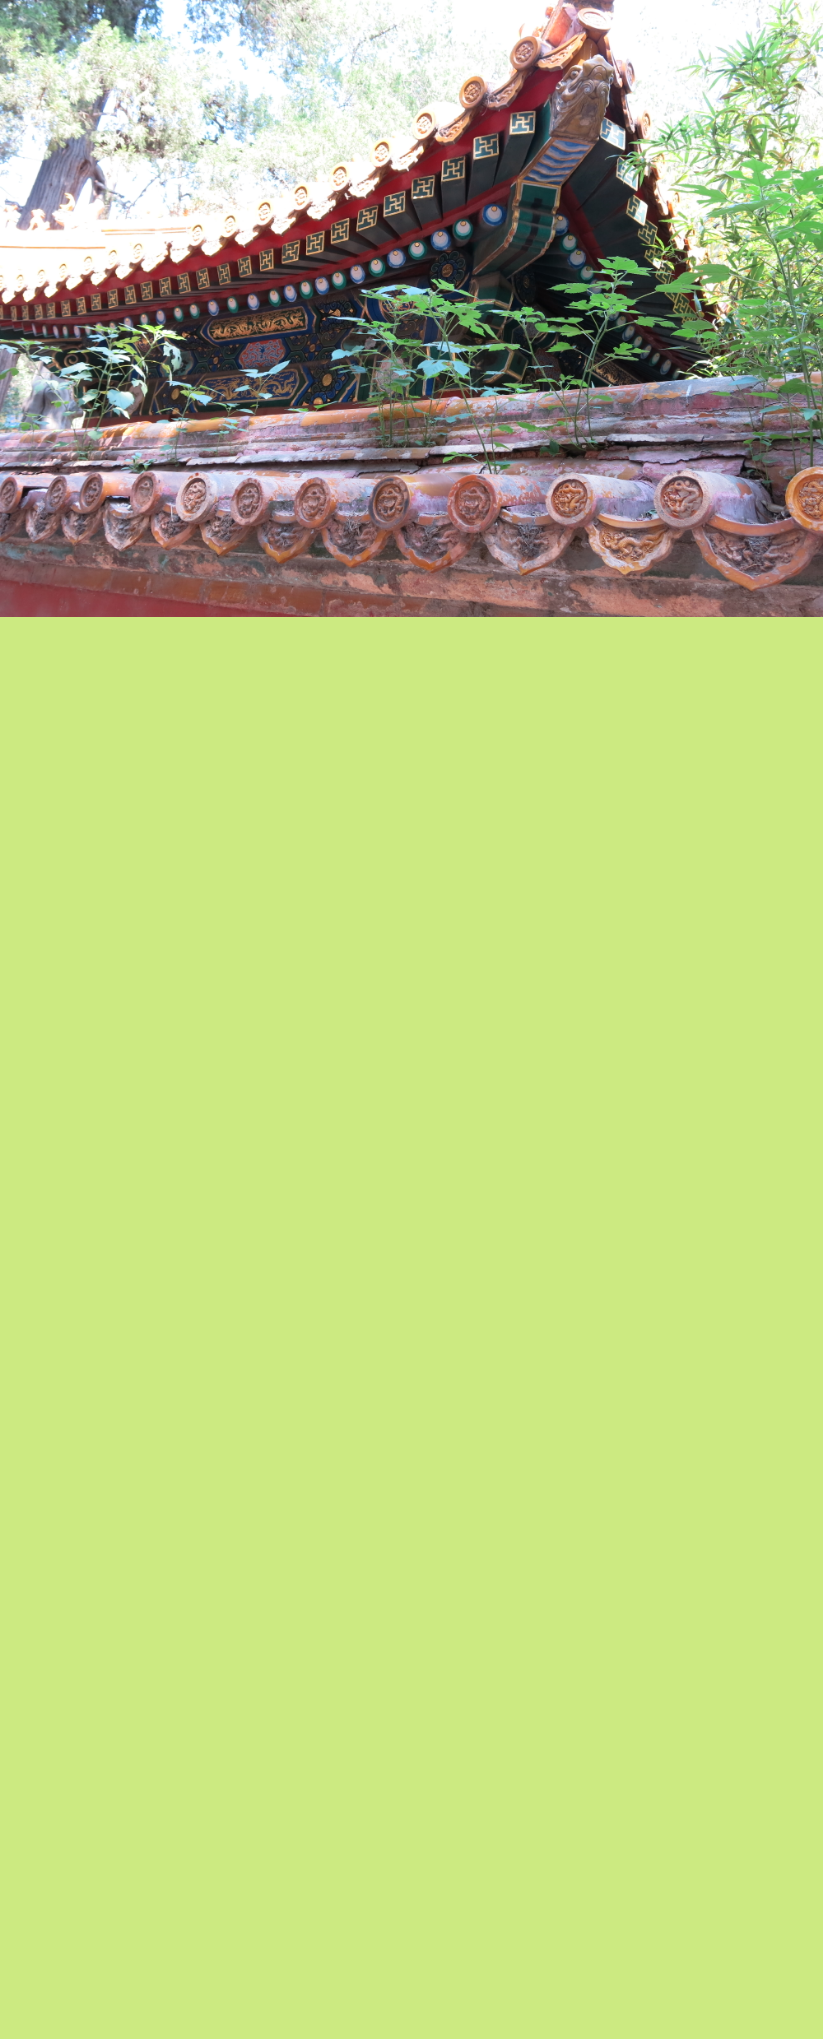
void draw(SkCanvas* canvas) {
	SkPaint paint;
	paint.setAntiAlias(true);
	canvas->clear(0xffccea81);
	canvas->drawImageRect(SkImages::DeferredFromEncodedData(SkData::MakeFromFileName("img1.png")), SkRect::MakeXYWH(0, 0, 823, 617), SkSamplingOptions());
}
